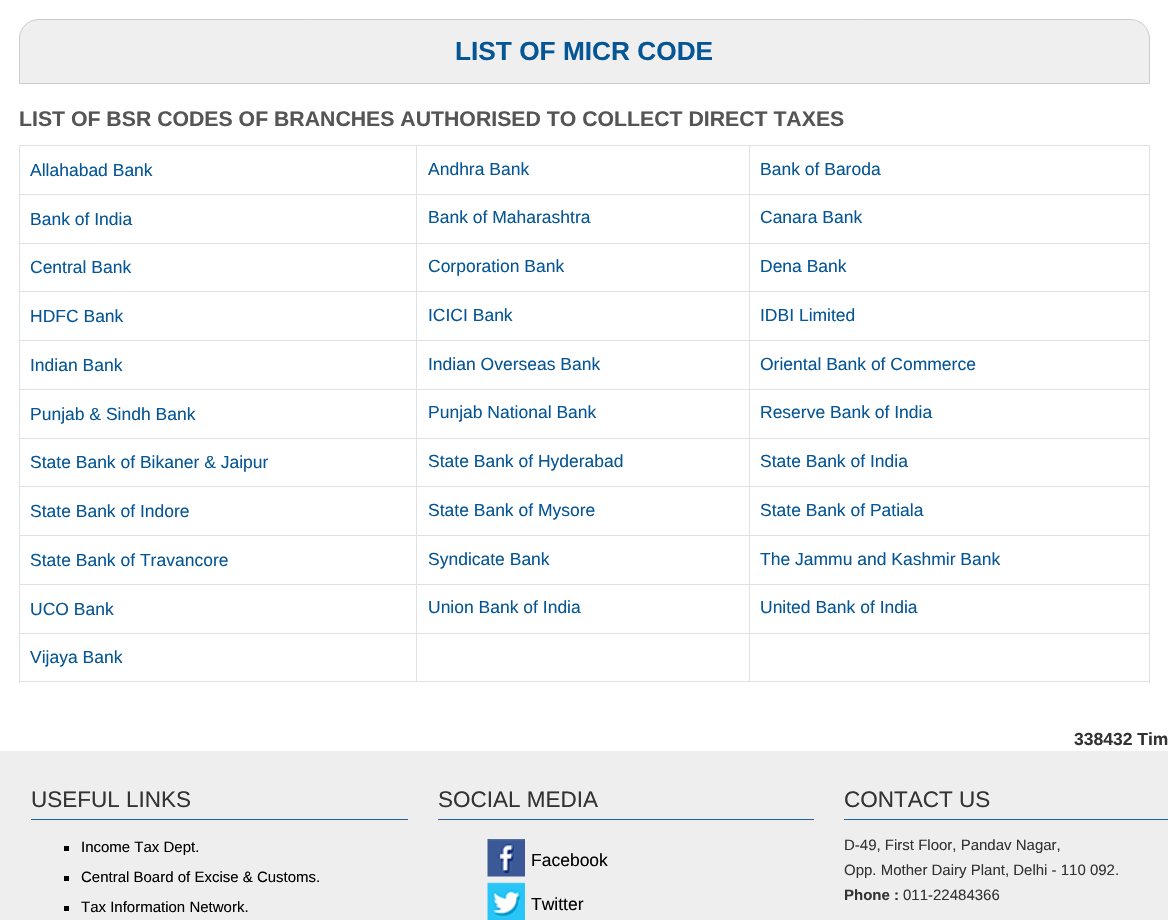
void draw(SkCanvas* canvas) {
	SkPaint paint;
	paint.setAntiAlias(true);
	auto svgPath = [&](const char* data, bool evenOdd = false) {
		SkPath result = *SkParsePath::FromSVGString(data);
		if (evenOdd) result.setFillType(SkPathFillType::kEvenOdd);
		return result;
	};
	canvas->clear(0xffffffff);
	paint.setColor(0xffefefef);
	canvas->drawPath(svgPath("M39 19.5H1130C1141 19.5 1149.5 28 1149.5 39V83.5H19.5V39C19.5 28 28 19.5 39 19.5Z"), paint);
	paint.setStroke(true);
	paint.setStrokeWidth(1);
	paint.setColor(0xffcccccc);
	canvas->drawPath(svgPath("M39 19.5H1130C1141 19.5 1149.5 28 1149.5 39V83.5H19.5V39C19.5 28 28 19.5 39 19.5Z"), paint);
	SkFont f1(fontMgr->matchFamilyStyle("Liberation Sans", SkFontStyle::Bold()), 26.25);
	f1.setSubpixel(true);
	paint.setStroke(false);
	paint.setColor(0xff065695);
	canvas->drawString("LIST OF MICR CODE", 455, 60, f1, paint);
	SkFont f2(fontMgr->matchFamilyStyle("Liberation Sans", SkFontStyle::Bold()), 21.25);
	f2.setSubpixel(true);
	paint.setColor(0xff555555);
	canvas->drawString("LIST OF BSR CODES OF BRANCHES AUTHORISED TO COLLECT DIRECT TAXES", 19, 126, f2, paint);
	paint.setColor(0xffdee2e6);
	canvas->drawRect(SkRect::MakeXYWH(19, 145, 1131, 1), paint);
	canvas->drawRect(SkRect::MakeXYWH(1149, 145, 1, 538), paint);
	canvas->drawRect(SkRect::MakeXYWH(19, 681, 1131, 1), paint);
	canvas->drawRect(SkRect::MakeXYWH(19, 145, 1, 538), paint);
	SkFont f3(fontMgr->matchFamilyStyle("Liberation Sans", SkFontStyle::Normal()), 17.5);
	f3.setSubpixel(true);
	paint.setColor(0xff065695);
	canvas->drawString("Allahabad Bank", 30, 176, f3, paint);
	paint.setColor(0xffdee2e6);
	canvas->drawRect(SkRect::MakeXYWH(749, 194, 400, 1), paint);
	canvas->drawRect(SkRect::MakeXYWH(749, 243, 400, 1), paint);
	canvas->drawRect(SkRect::MakeXYWH(749, 291, 400, 1), paint);
	canvas->drawRect(SkRect::MakeXYWH(749, 340, 400, 1), paint);
	canvas->drawRect(SkRect::MakeXYWH(749, 389, 400, 1), paint);
	canvas->drawRect(SkRect::MakeXYWH(749, 438, 400, 1), paint);
	canvas->drawRect(SkRect::MakeXYWH(749, 486, 400, 1), paint);
	canvas->drawRect(SkRect::MakeXYWH(749, 535, 400, 1), paint);
	canvas->drawRect(SkRect::MakeXYWH(749, 584, 400, 1), paint);
	canvas->drawRect(SkRect::MakeXYWH(749, 633, 400, 1), paint);
	canvas->drawRect(SkRect::MakeXYWH(749, 633, 1, 48), paint);
	canvas->drawRect(SkRect::MakeXYWH(416, 633, 334, 1), paint);
	canvas->drawRect(SkRect::MakeXYWH(749, 584, 1, 50), paint);
	canvas->drawRect(SkRect::MakeXYWH(416, 584, 334, 1), paint);
	canvas->drawRect(SkRect::MakeXYWH(749, 535, 1, 50), paint);
	canvas->drawRect(SkRect::MakeXYWH(416, 535, 334, 1), paint);
	canvas->drawRect(SkRect::MakeXYWH(749, 486, 1, 50), paint);
	canvas->drawRect(SkRect::MakeXYWH(416, 486, 334, 1), paint);
	canvas->drawRect(SkRect::MakeXYWH(749, 438, 1, 50), paint);
	canvas->drawRect(SkRect::MakeXYWH(416, 438, 334, 1), paint);
	canvas->drawRect(SkRect::MakeXYWH(749, 389, 1, 50), paint);
	canvas->drawRect(SkRect::MakeXYWH(416, 389, 334, 1), paint);
	canvas->drawRect(SkRect::MakeXYWH(749, 340, 1, 50), paint);
	canvas->drawRect(SkRect::MakeXYWH(416, 340, 334, 1), paint);
	canvas->drawRect(SkRect::MakeXYWH(749, 291, 1, 50), paint);
	canvas->drawRect(SkRect::MakeXYWH(416, 291, 334, 1), paint);
	canvas->drawRect(SkRect::MakeXYWH(749, 243, 1, 50), paint);
	canvas->drawRect(SkRect::MakeXYWH(416, 243, 334, 1), paint);
	canvas->drawRect(SkRect::MakeXYWH(749, 194, 1, 50), paint);
	canvas->drawRect(SkRect::MakeXYWH(416, 194, 334, 1), paint);
	canvas->drawRect(SkRect::MakeXYWH(416, 633, 1, 48), paint);
	canvas->drawRect(SkRect::MakeXYWH(20, 633, 398, 1), paint);
	canvas->drawRect(SkRect::MakeXYWH(416, 584, 1, 50), paint);
	canvas->drawRect(SkRect::MakeXYWH(20, 584, 398, 1), paint);
	canvas->drawRect(SkRect::MakeXYWH(416, 535, 1, 50), paint);
	canvas->drawRect(SkRect::MakeXYWH(20, 535, 398, 1), paint);
	canvas->drawRect(SkRect::MakeXYWH(416, 486, 1, 50), paint);
	canvas->drawRect(SkRect::MakeXYWH(20, 486, 398, 1), paint);
	canvas->drawRect(SkRect::MakeXYWH(416, 438, 1, 50), paint);
	canvas->drawRect(SkRect::MakeXYWH(20, 438, 398, 1), paint);
	canvas->drawRect(SkRect::MakeXYWH(416, 389, 1, 50), paint);
	canvas->drawRect(SkRect::MakeXYWH(20, 389, 398, 1), paint);
	canvas->drawRect(SkRect::MakeXYWH(416, 340, 1, 50), paint);
	canvas->drawRect(SkRect::MakeXYWH(20, 340, 398, 1), paint);
	canvas->drawRect(SkRect::MakeXYWH(416, 291, 1, 50), paint);
	canvas->drawRect(SkRect::MakeXYWH(20, 291, 398, 1), paint);
	canvas->drawRect(SkRect::MakeXYWH(416, 243, 1, 50), paint);
	canvas->drawRect(SkRect::MakeXYWH(20, 243, 398, 1), paint);
	canvas->drawRect(SkRect::MakeXYWH(416, 194, 1, 50), paint);
	canvas->drawRect(SkRect::MakeXYWH(20, 194, 398, 1), paint);
	canvas->drawRect(SkRect::MakeXYWH(416, 146, 1, 49), paint);
	paint.setColor(0xff065695);
	canvas->drawString("Andhra Bank", 428, 175, f3, paint);
	paint.setColor(0xffdee2e6);
	canvas->drawRect(SkRect::MakeXYWH(749, 146, 1, 49), paint);
	paint.setColor(0xff065695);
	canvas->drawString("Bank of Baroda", 760, 175, f3, paint);
	canvas->drawString("Bank of India", 30, 225, f3, paint);
	canvas->drawString("Bank of Maharashtra", 428, 223, f3, paint);
	canvas->drawString("Canara Bank", 760, 223, f3, paint);
	canvas->drawString("Central Bank", 30, 273, f3, paint);
	canvas->drawString("Corporation Bank", 428, 272, f3, paint);
	canvas->drawString("Dena Bank", 760, 272, f3, paint);
	canvas->drawString("HDFC Bank", 30, 322, f3, paint);
	canvas->drawString("ICICI Bank", 428, 321, f3, paint);
	canvas->drawString("IDBI Limited", 760, 321, f3, paint);
	canvas->drawString("Indian Bank", 30, 371, f3, paint);
	canvas->drawString("Indian Overseas Bank", 428, 370, f3, paint);
	canvas->drawString("Oriental Bank of Commerce", 760, 370, f3, paint);
	canvas->drawString("Punjab & Sindh Bank", 30, 420, f3, paint);
	canvas->drawString("Punjab National Bank", 428, 418, f3, paint);
	canvas->drawString("Reserve Bank of India", 760, 418, f3, paint);
	canvas->drawString("State Bank of Bikaner & Jaipur", 30, 468, f3, paint);
	canvas->drawString("State Bank of Hyderabad", 428, 467, f3, paint);
	canvas->drawString("State Bank of India", 760, 467, f3, paint);
	canvas->drawString("State Bank of Indore", 30, 517, f3, paint);
	canvas->drawString("State Bank of Mysore", 428, 516, f3, paint);
	canvas->drawString("State Bank of Patiala", 760, 516, f3, paint);
	canvas->drawString("State Bank of Travancore", 30, 566, f3, paint);
	canvas->drawString("Syndicate Bank", 428, 565, f3, paint);
	canvas->drawString("The Jammu and Kashmir Bank", 760, 565, f3, paint);
	canvas->drawString("UCO Bank", 30, 615, f3, paint);
	canvas->drawString("Union Bank of India", 428, 613, f3, paint);
	canvas->drawString("United Bank of India", 760, 613, f3, paint);
	canvas->drawString("Vijaya Bank", 30, 663, f3, paint);
	SkFont f4(fontMgr->matchFamilyStyle("Liberation Sans", SkFontStyle::Bold()), 17.5);
	f4.setSubpixel(true);
	paint.setColor(0xff333333);
	canvas->drawString("338432 Tim", 1074, 745, f4, paint);
	paint.setColor(0xffeeeeee);
	canvas->drawRect(SkRect::MakeXYWH(0, 751, 1168, 169), paint);
	paint.setColor(0xff226199);
	canvas->drawRect(SkRect::MakeXYWH(31, 819, 377, 1), paint);
	SkFont f5(fontMgr->matchFamilyStyle("Liberation Sans", SkFontStyle::Normal()), 22.5);
	f5.setSubpixel(true);
	paint.setColor(0xff333333);
	canvas->drawString("USEFUL LINKS", 31, 807, f5, paint);
	paint.setColor(0xff226199);
	canvas->drawRect(SkRect::MakeXYWH(438, 819, 376, 1), paint);
	paint.setColor(0xff333333);
	canvas->drawString("SOCIAL MEDIA", 438, 807, f5, paint);
	paint.setColor(0xff226199);
	canvas->drawRect(SkRect::MakeXYWH(844, 819, 324, 1), paint);
	paint.setColor(0xff333333);
	canvas->drawString("CONTACT US", 844, 807, f5, paint);
	paint.setColor(0xff000000);
	canvas->drawRect(SkRect::MakeXYWH(64, 846, 5, 5), paint);
	SkFont f6(fontMgr->matchFamilyStyle("Liberation Sans", SkFontStyle::Normal()), 15);
	f6.setSubpixel(true);
	canvas->drawString("Income Tax Dept.", 81, 852, f6, paint);
	canvas->drawRect(SkRect::MakeXYWH(64, 876, 5, 5), paint);
	canvas->drawString("Central Board of Excise & Customs.", 81, 882, f6, paint);
	canvas->drawRect(SkRect::MakeXYWH(64, 906, 5, 5), paint);
	canvas->drawString("Tax Information Network.", 81, 912, f6, paint);
	canvas->drawImageRect(SkImages::DeferredFromEncodedData(SkData::MakeFromFileName("img1.png")), SkRect::MakeXYWH(487, 839, 38, 38), SkSamplingOptions());
	canvas->drawString("Facebook", 531, 866, f3, paint);
	canvas->drawImageRect(SkImages::DeferredFromEncodedData(SkData::MakeFromFileName("img2.png")), SkRect::MakeXYWH(487, 882, 38, 38), SkSamplingOptions());
	canvas->drawString("Twitter", 531, 910, f3, paint);
	paint.setColor(0xff333333);
	canvas->drawString("D-49, First Floor, Pandav Nagar,", 844, 850, f6, paint);
	canvas->drawString("Opp. Mother Dairy Plant, Delhi - 110 092.", 844, 875, f6, paint);
	SkFont f7(fontMgr->matchFamilyStyle("Liberation Sans", SkFontStyle::Bold()), 15);
	f7.setSubpixel(true);
	canvas->drawString("Phone :", 844, 900, f7, paint);
	canvas->drawString("011-22484366", 903, 900, f6, paint);
}
